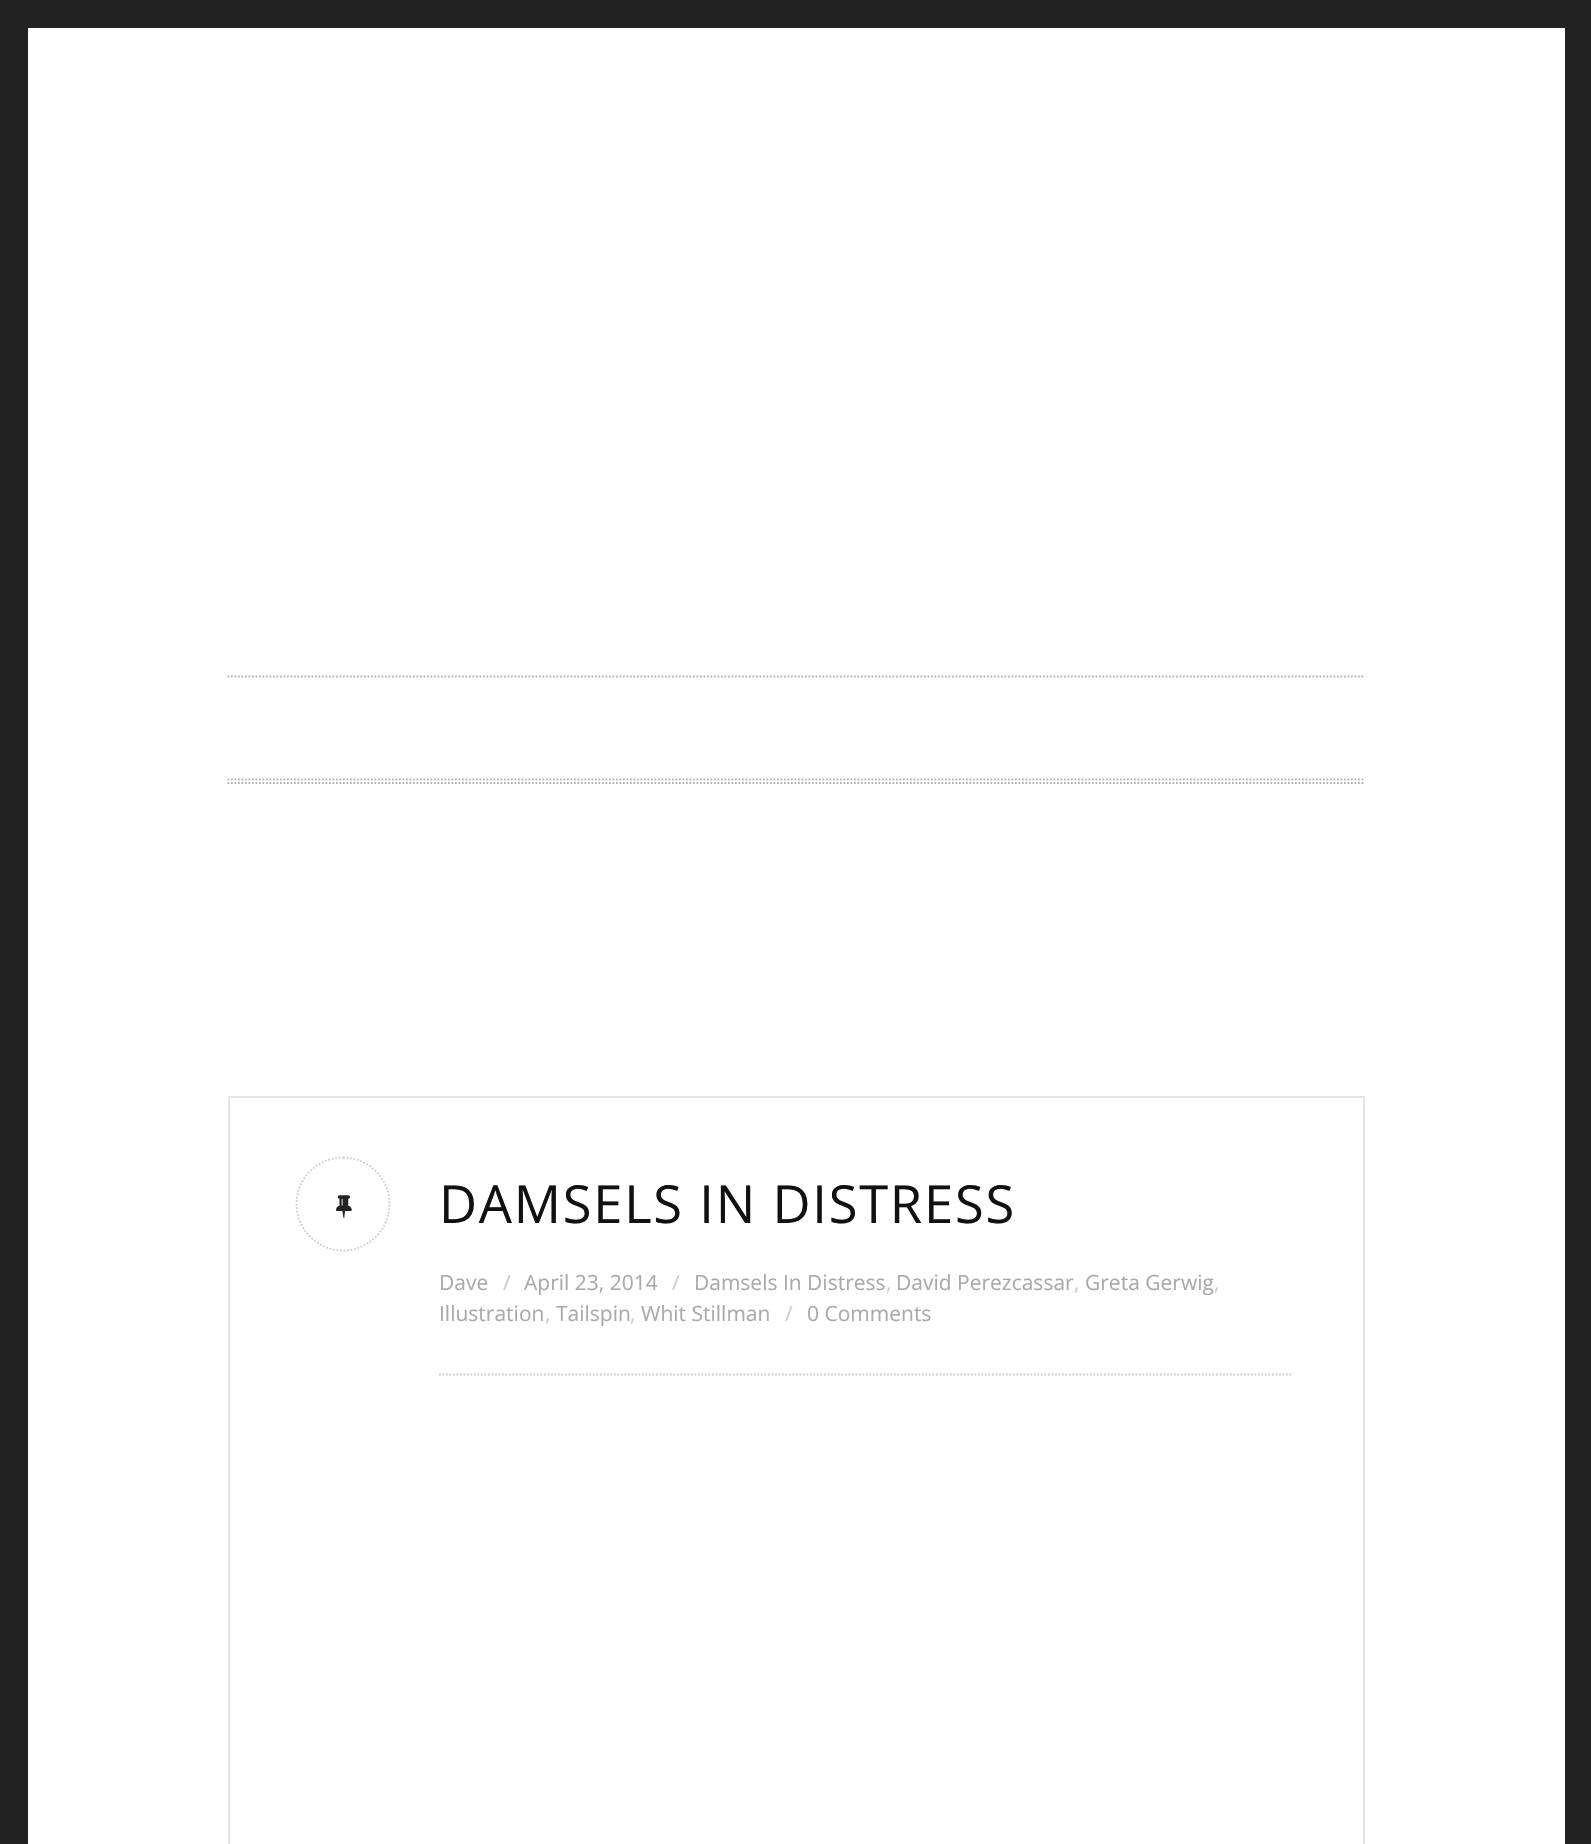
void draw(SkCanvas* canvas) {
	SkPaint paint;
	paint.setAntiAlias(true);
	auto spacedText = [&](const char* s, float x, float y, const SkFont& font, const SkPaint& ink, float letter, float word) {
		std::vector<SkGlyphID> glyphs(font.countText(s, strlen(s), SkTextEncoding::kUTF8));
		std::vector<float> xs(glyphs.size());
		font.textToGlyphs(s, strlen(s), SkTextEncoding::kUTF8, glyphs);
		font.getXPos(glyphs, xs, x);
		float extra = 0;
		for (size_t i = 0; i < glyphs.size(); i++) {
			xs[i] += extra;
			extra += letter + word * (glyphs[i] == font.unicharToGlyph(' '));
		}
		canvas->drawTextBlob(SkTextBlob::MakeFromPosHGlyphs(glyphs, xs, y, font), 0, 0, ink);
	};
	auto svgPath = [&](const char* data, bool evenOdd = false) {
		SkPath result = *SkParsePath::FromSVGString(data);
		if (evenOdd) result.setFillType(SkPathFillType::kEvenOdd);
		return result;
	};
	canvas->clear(0xffffffff);
	paint.setStroke(true);
	paint.setStrokeWidth(28);
	paint.setColor(0xff222222);
	canvas->drawRect(SkRect::MakeXYWH(14, 14, 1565, 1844), paint);
	paint.setStrokeWidth(1.8);
	paint.setColor(0xffb3b3b3);
	paint.setPathEffect(SkDashPathEffect::Make({{1.75f, 1.75f}}, 0));
	canvas->drawPath(svgPath("M227.5 676.5H1365"), paint);
	paint.setPathEffect(nullptr);
	paint.setPathEffect(SkDashPathEffect::Make({{1.75f, 1.75f}}, 0));
	canvas->drawPath(svgPath("M227.5 779.5H1365"), paint);
	paint.setPathEffect(nullptr);
	paint.setPathEffect(SkDashPathEffect::Make({{1.75f, 1.75f}}, 0));
	canvas->drawPath(svgPath("M227.5 783H1365"), paint);
	paint.setPathEffect(nullptr);
	paint.setStrokeWidth(2);
	paint.setColor(0xffe5e5e5);
	canvas->drawRect(SkRect::MakeXYWH(229, 1097, 1135, 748), paint);
	paint.setStrokeWidth(1.8);
	paint.setColor(0xffcccccc);
	paint.setPathEffect(SkDashPathEffect::Make({{1.75f, 1.75f}}, 0));
	canvas->drawPath(svgPath("M343 1157.5C368.5 1157.5 389.5 1178.5 389.5 1204C389.5 1229.5 368.5 1250.5 343 1250.5C317.5 1250.5 296.5 1229.5 296.5 1204C296.5 1178.5 317.5 1157.5 343 1157.5Z"), paint);
	paint.setPathEffect(nullptr);
	canvas->drawImageRect(SkImages::DeferredFromEncodedData(SkData::MakeFromFileName("img1.png")), SkRect::MakeXYWH(336, 1195, 16, 23), SkSamplingOptions());
	SkFont f1(fontMgr->matchFamilyStyle("Open Sans", SkFontStyle::Normal()), 52.5);
	f1.setSubpixel(true);
	paint.setStroke(false);
	paint.setColor(0xff111111);
	spacedText("DAMSELS IN DISTRESS", 439, 1223, f1, paint, 1.75, 0);
	SkFont f2(fontMgr->matchFamilyStyle("Open Sans", SkFontStyle::Normal()), 21);
	f2.setSubpixel(true);
	paint.setColor(0xffaaaaaa);
	canvas->drawString("Dave", 439, 1290, f2, paint);
	paint.setColor(0xffcccccc);
	canvas->drawString("/", 503, 1290, f2, paint);
	paint.setColor(0xffaaaaaa);
	canvas->drawString("April 23, 2014", 524, 1290, f2, paint);
	paint.setColor(0xffcccccc);
	canvas->drawString("/", 672, 1290, f2, paint);
	paint.setColor(0xffaaaaaa);
	canvas->drawString("Damsels In Distress", 694, 1290, f2, paint);
	paint.setColor(0xffcccccc);
	canvas->drawString(",", 886, 1290, f2, paint);
	paint.setColor(0xffaaaaaa);
	canvas->drawString("David Perezcassar", 896, 1290, f2, paint);
	paint.setColor(0xffcccccc);
	canvas->drawString(",", 1074, 1290, f2, paint);
	paint.setColor(0xffaaaaaa);
	canvas->drawString("Greta Gerwig", 1085, 1290, f2, paint);
	paint.setColor(0xffcccccc);
	canvas->drawString(",", 1214, 1290, f2, paint);
	paint.setColor(0xffaaaaaa);
	canvas->drawString("Illustration", 439, 1321, f2, paint);
	paint.setColor(0xffcccccc);
	canvas->drawString(",", 545, 1321, f2, paint);
	paint.setColor(0xffaaaaaa);
	canvas->drawString("Tailspin", 556, 1321, f2, paint);
	paint.setColor(0xffcccccc);
	canvas->drawString(",", 630, 1321, f2, paint);
	paint.setColor(0xffaaaaaa);
	canvas->drawString("Whit Stillman", 641, 1321, f2, paint);
	paint.setColor(0xffcccccc);
	canvas->drawString("/", 785, 1321, f2, paint);
	paint.setColor(0xffaaaaaa);
	canvas->drawString("0 Comments", 807, 1321, f2, paint);
	paint.setStroke(true);
	paint.setColor(0xffcccccc);
	paint.setPathEffect(SkDashPathEffect::Make({{1.75f, 1.75f}}, 0));
	canvas->drawPath(svgPath("M439 1374.5H1293"), paint);
	paint.setPathEffect(nullptr);
}
